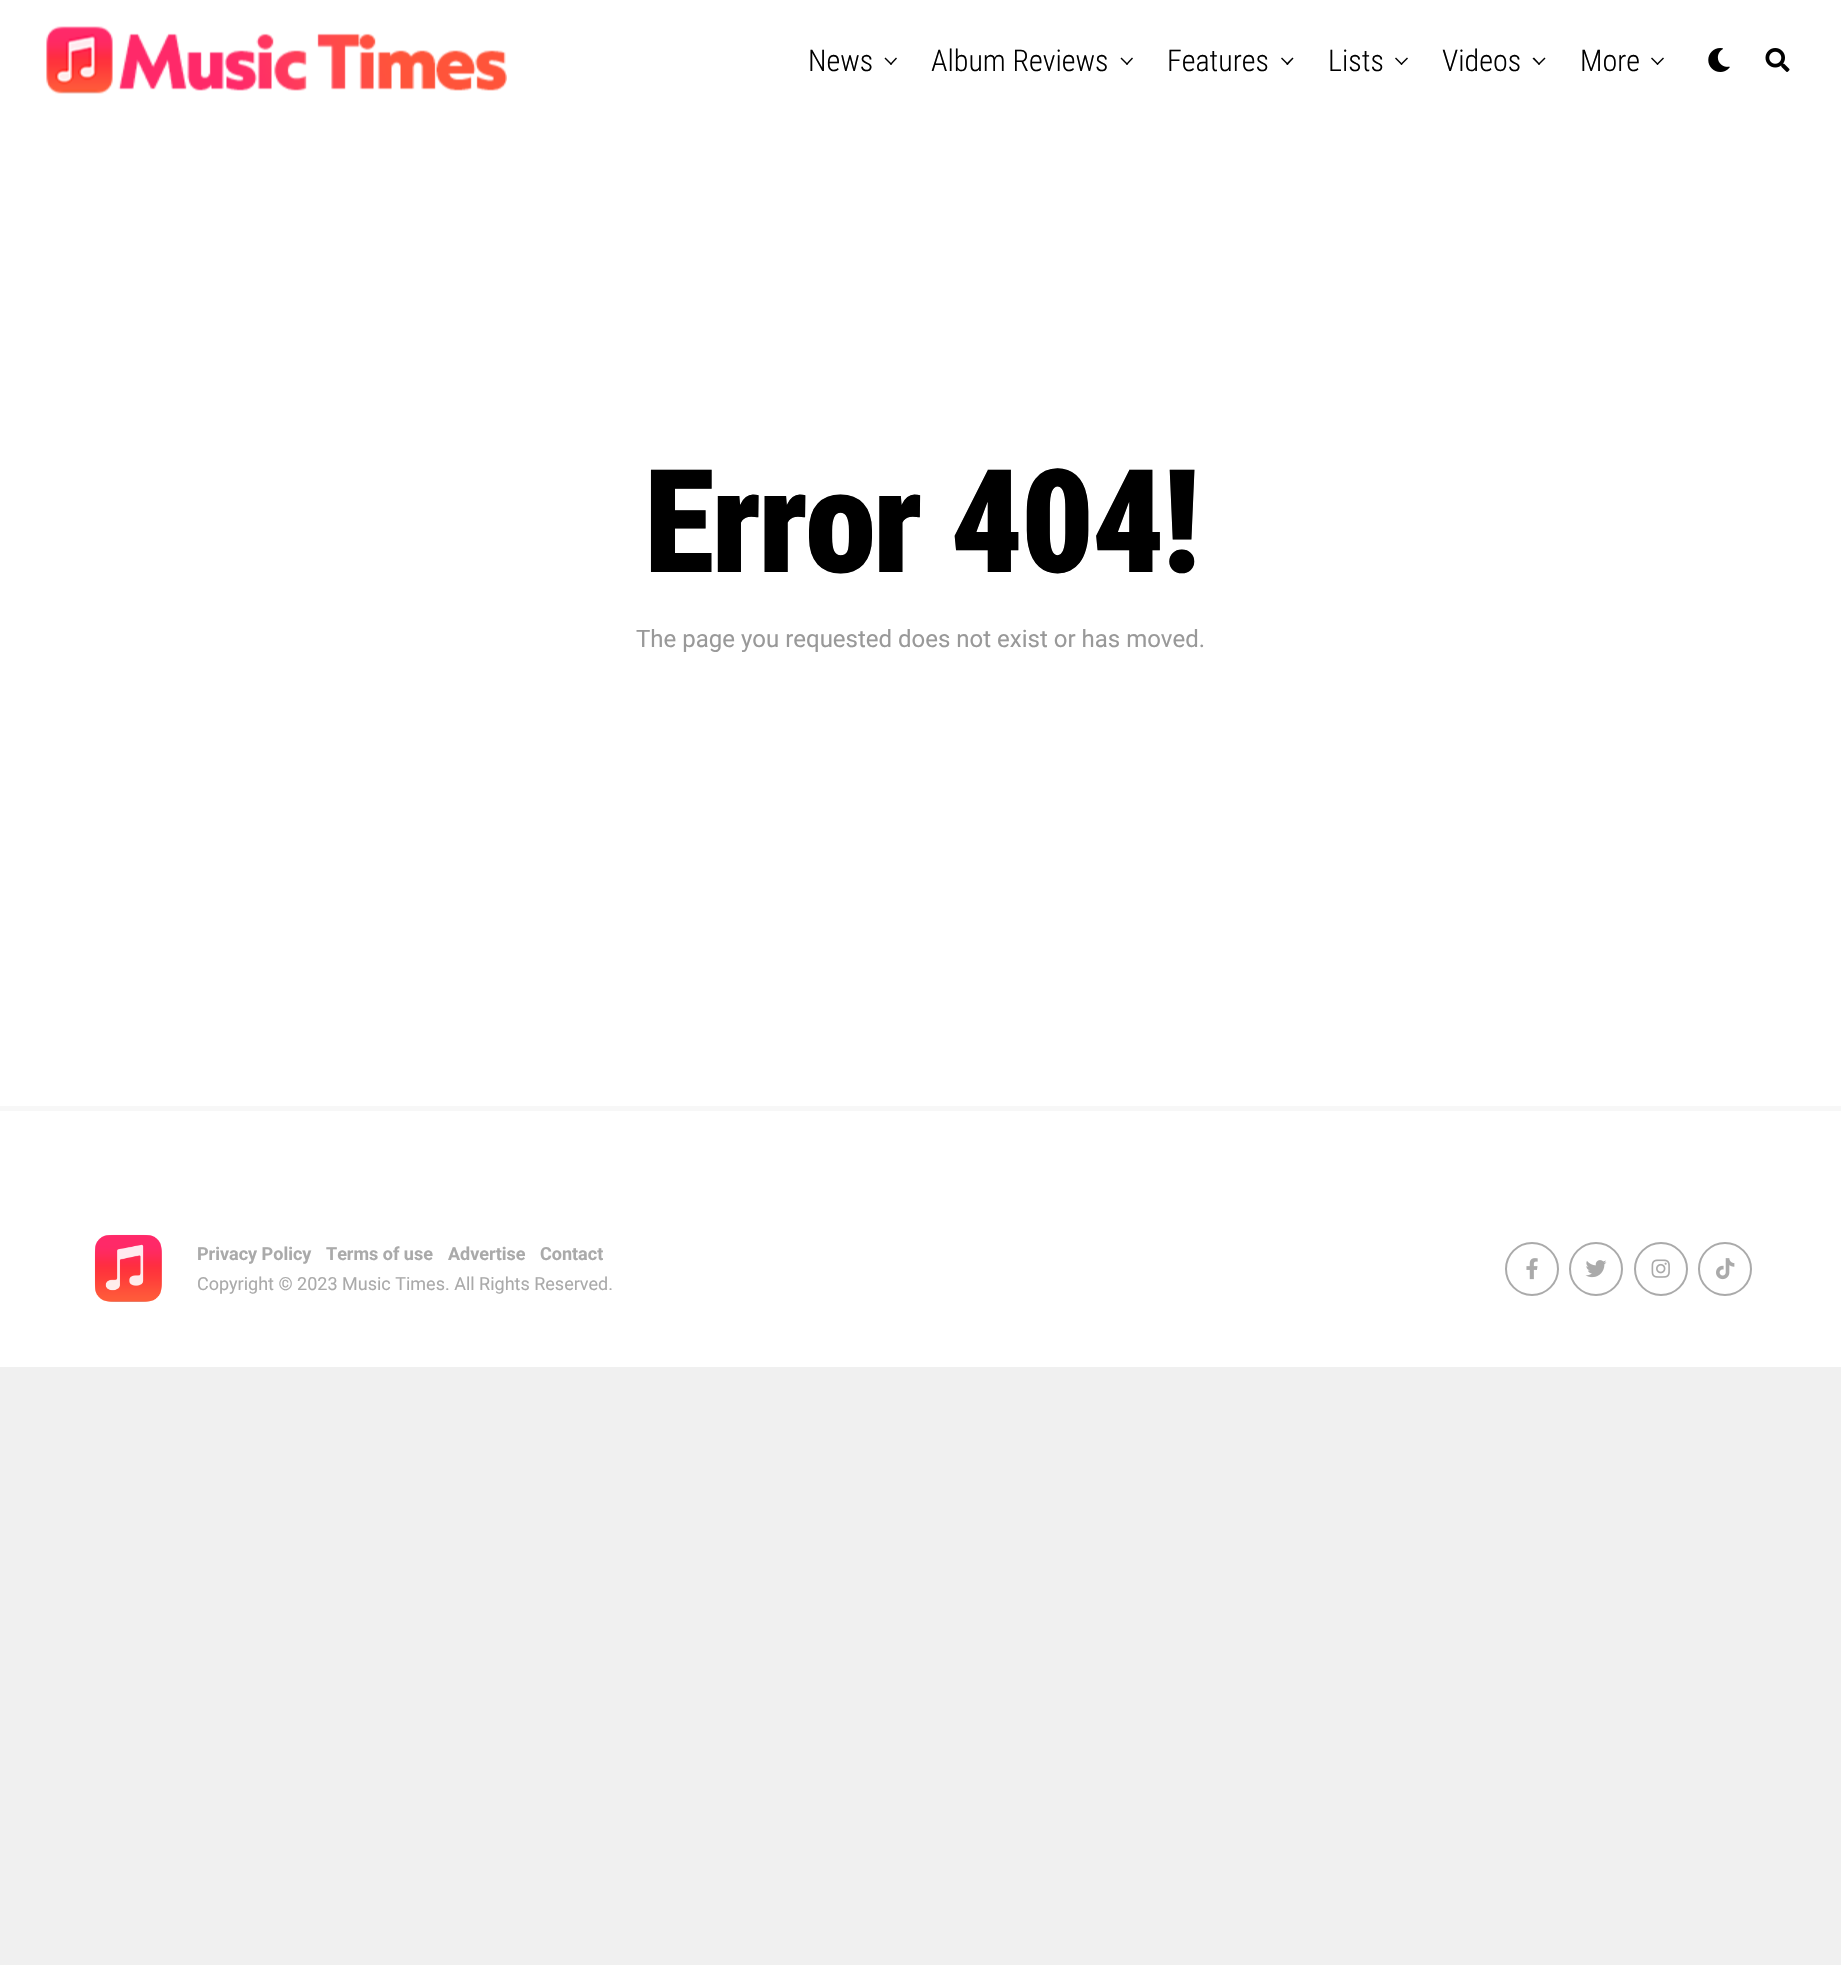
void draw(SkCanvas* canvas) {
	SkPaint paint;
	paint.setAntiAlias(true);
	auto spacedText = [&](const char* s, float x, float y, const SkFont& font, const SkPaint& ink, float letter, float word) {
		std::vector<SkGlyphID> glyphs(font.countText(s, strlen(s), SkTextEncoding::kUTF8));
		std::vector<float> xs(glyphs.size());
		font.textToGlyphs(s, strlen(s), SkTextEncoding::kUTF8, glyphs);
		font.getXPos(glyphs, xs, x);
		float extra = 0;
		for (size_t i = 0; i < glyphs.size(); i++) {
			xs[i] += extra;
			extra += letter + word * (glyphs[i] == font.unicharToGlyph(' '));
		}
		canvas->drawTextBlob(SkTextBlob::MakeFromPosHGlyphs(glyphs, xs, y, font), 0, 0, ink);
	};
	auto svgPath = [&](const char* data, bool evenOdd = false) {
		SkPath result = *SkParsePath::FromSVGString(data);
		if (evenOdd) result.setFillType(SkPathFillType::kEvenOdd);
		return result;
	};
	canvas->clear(0xfff0f0f0);
	paint.setColor(0xffffffff);
	canvas->drawRect(SkRect::MakeXYWH(0, 0, 1841, 1106), paint);
	canvas->drawImageRect(SkImages::DeferredFromEncodedData(SkData::MakeFromFileName("img1.png")), SkRect::MakeXYWH(46, 26, 461, 68), SkSamplingOptions());
	SkFont f1(fontMgr->matchFamilyStyle("Roboto Condensed", SkFontStyle(300, SkFontStyle::kNormal_Width, SkFontStyle::kUpright_Slant)), 30);
	f1.setSubpixel(true);
	paint.setColor(0xff000000);
	canvas->drawString("News", 808, 71, f1, paint);
	canvas->drawPath(svgPath("M896 57.5L897 58.5L891 65L890 64Z"), paint);
	canvas->drawPath(svgPath("M885.5 57.5L892 64L891 65L884.5 58.5Z"), paint);
	canvas->drawString("Album Reviews", 931, 71, f1, paint);
	canvas->drawPath(svgPath("M1132 57.5L1133 58.5L1127 65L1126 64Z"), paint);
	canvas->drawPath(svgPath("M1121.5 57.5L1128 64L1127 65L1120.5 58.5Z"), paint);
	canvas->drawString("Features", 1167, 71, f1, paint);
	canvas->drawPath(svgPath("M1292.5 57.5L1293.5 58.5L1287.5 65L1286 64Z"), paint);
	canvas->drawPath(svgPath("M1282 57.5L1288.5 64L1287.5 65L1281 58.5Z"), paint);
	canvas->drawString("Lists", 1328, 71, f1, paint);
	canvas->drawPath(svgPath("M1407 57.5L1408 58.5L1401.5 65L1400.5 64Z"), paint);
	canvas->drawPath(svgPath("M1396 57.5L1402.5 64L1401.5 65L1395 58.5Z"), paint);
	canvas->drawString("Videos", 1442, 71, f1, paint);
	canvas->drawPath(svgPath("M1544.5 57.5L1545.5 58.5L1539 65L1538 64Z"), paint);
	canvas->drawPath(svgPath("M1534 57.5L1540 64L1539 65L1532.5 58.5Z"), paint);
	canvas->drawString("More", 1580, 71, f1, paint);
	canvas->drawPath(svgPath("M1663 57.5L1664 58.5L1657.5 65L1656.5 64Z"), paint);
	canvas->drawPath(svgPath("M1652 57.5L1658.5 64L1657.5 65L1651 58.5Z"), paint);
	canvas->drawImageRect(SkImages::DeferredFromEncodedData(SkData::MakeFromFileName("img2.png")), SkRect::MakeXYWH(1708, 48, 22, 24), SkSamplingOptions());
	canvas->drawImageRect(SkImages::DeferredFromEncodedData(SkData::MakeFromFileName("img3.png")), SkRect::MakeXYWH(1765, 48, 25, 24), SkSamplingOptions());
	SkFont f2(fontMgr->matchFamilyStyle("Roboto Condensed", SkFontStyle(900, SkFontStyle::kNormal_Width, SkFontStyle::kUpright_Slant)), 144);
	f2.setSubpixel(true);
	spacedText("Error 404!", 644, 572, f2, paint, -2.9, 0);
	SkFont f3(fontMgr->matchFamilyStyle("Roboto", SkFontStyle::Normal()), 24);
	f3.setSubpixel(true);
	paint.setColor(0xff999999);
	canvas->drawString("The page you requested does not exist or has moved.", 636, 647, f3, paint);
	paint.setColor(0xffffffff);
	canvas->drawRect(SkRect::MakeXYWH(0, 1111, 1841, 256), paint);
	paint.setColor(0xfff7f7f7);
	canvas->drawRect(SkRect::MakeXYWH(0, 1106, 1841, 5), paint);
	canvas->drawImageRect(SkImages::DeferredFromEncodedData(SkData::MakeFromFileName("img4.png")), SkRect::MakeXYWH(94, 1234, 68, 68), SkSamplingOptions());
	SkFont f4(fontMgr->matchFamilyStyle("Roboto", SkFontStyle::Bold()), 18);
	f4.setSubpixel(true);
	paint.setColor(0xffaaaaaa);
	canvas->drawString("Privacy Policy", 197, 1260, f4, paint);
	canvas->drawString("Terms of use", 326, 1260, f4, paint);
	canvas->drawString("Advertise", 448, 1260, f4, paint);
	canvas->drawString("Contact", 540, 1260, f4, paint);
	SkFont f5(fontMgr->matchFamilyStyle("Roboto", SkFontStyle::Normal()), 18);
	f5.setSubpixel(true);
	canvas->drawString("Copyright © 2023 Music Times. All Rights Reserved.", 197, 1290, f5, paint);
	paint.setStroke(true);
	paint.setStrokeWidth(2);
	canvas->drawCircle(1532, 1269, 26, paint);
	canvas->drawImageRect(SkImages::DeferredFromEncodedData(SkData::MakeFromFileName("img5.png")), SkRect::MakeXYWH(1526, 1258, 12, 22), SkSamplingOptions());
	canvas->drawCircle(1596, 1269, 26, paint);
	canvas->drawImageRect(SkImages::DeferredFromEncodedData(SkData::MakeFromFileName("img6.png")), SkRect::MakeXYWH(1585, 1260, 22, 18), SkSamplingOptions());
	canvas->drawCircle(1661, 1269, 26, paint);
	canvas->drawImageRect(SkImages::DeferredFromEncodedData(SkData::MakeFromFileName("img7.png")), SkRect::MakeXYWH(1651, 1259, 19, 19), SkSamplingOptions());
	canvas->drawCircle(1725, 1269, 26, paint);
	canvas->drawImageRect(SkImages::DeferredFromEncodedData(SkData::MakeFromFileName("img8.png")), SkRect::MakeXYWH(1716, 1258, 19, 22), SkSamplingOptions());
}
